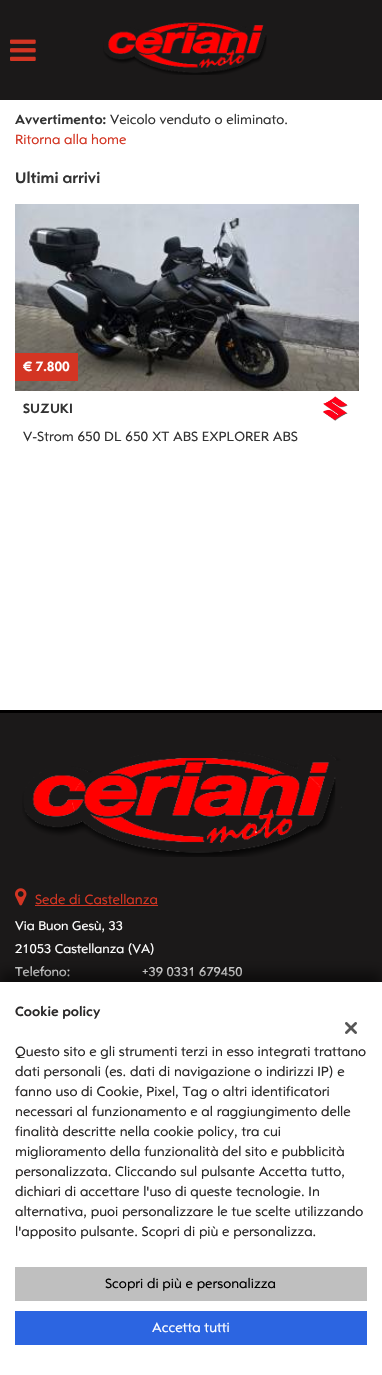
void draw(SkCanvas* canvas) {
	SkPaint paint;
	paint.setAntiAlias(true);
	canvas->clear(0xffffffff);
	paint.setColor(0xff1b1919);
	canvas->drawRect(SkRect::MakeXYWH(0, 0, 382, 100), paint);
	canvas->drawImageRect(SkImages::DeferredFromEncodedData(SkData::MakeFromFileName("img1.png")), SkRect::MakeXYWH(10, 39, 26, 22), SkSamplingOptions());
	canvas->drawImageRect(SkImages::DeferredFromEncodedData(SkData::MakeFromFileName("img2.png")), SkRect::MakeXYWH(103, 22, 164, 53), SkSamplingOptions());
	SkFont f1(fontMgr->matchFamilyStyle("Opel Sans", SkFontStyle::Bold()), 14);
	f1.setSubpixel(true);
	paint.setColor(0xff333333);
	canvas->drawString("Avvertimento:", 15, 124, f1, paint);
	SkFont f2(fontMgr->matchFamilyStyle("Opel Sans", SkFontStyle::Normal()), 14);
	f2.setSubpixel(true);
	canvas->drawString("Veicolo venduto o eliminato.", 110, 124, f2, paint);
	paint.setColor(0xffd33523);
	canvas->drawString("Ritorna alla home", 15, 144, f2, paint);
	SkFont f3(fontMgr->matchFamilyStyle("Opel Sans", SkFontStyle::Bold()), 16);
	f3.setSubpixel(true);
	paint.setColor(0xff333333);
	canvas->drawString("Ultimi arrivi", 15, 183, f3, paint);
	canvas->drawImageRect(SkImages::DeferredFromEncodedData(SkData::MakeFromFileName("img3.png")), SkRect::MakeXYWH(15, 204, 344, 187), SkSamplingOptions());
	paint.setColor(0xffd33523);
	canvas->drawRect(SkRect::MakeXYWH(15, 353, 63, 28), paint);
	paint.setColor(0xffffffff);
	canvas->drawString("€ 7.800", 23, 371, f1, paint);
	paint.setColor(0xff333333);
	canvas->drawString("SUZUKI", 23, 413, f1, paint);
	canvas->drawImageRect(SkImages::DeferredFromEncodedData(SkData::MakeFromFileName("img4.png")), SkRect::MakeXYWH(323, 396, 25, 25), SkSamplingOptions());
	canvas->drawString("V-Strom 650 DL 650 XT ABS EXPLORER ABS", 23, 441, f2, paint);
	paint.setColor(0xff1b1919);
	canvas->drawRect(SkRect::MakeXYWH(0, 713, 382, 269), paint);
	paint.setColor(0xff010000);
	canvas->drawRect(SkRect::MakeXYWH(0, 710, 382, 3), paint);
	canvas->drawImageRect(SkImages::DeferredFromEncodedData(SkData::MakeFromFileName("img5.png")), SkRect::MakeXYWH(22, 750, 320, 107), SkSamplingOptions());
	canvas->drawImageRect(SkImages::DeferredFromEncodedData(SkData::MakeFromFileName("img6.png")), SkRect::MakeXYWH(15, 888, 12, 18), SkSamplingOptions());
	paint.setColor(0xffd33523);
	canvas->drawString("Sede di Castellanza", 35, 904, f2, paint);
	canvas->drawRect(SkRect::MakeXYWH(35, 905, 123, 1), paint);
	SkFont f4(fontMgr->matchFamilyStyle("Opel Sans", SkFontStyle::Normal()), 13.25);
	f4.setSubpixel(true);
	paint.setColor(0xffffffff);
	canvas->drawString("Via Buon Gesù, 33", 15, 930, f4, paint);
	canvas->drawString("21053 Castellanza (VA)", 15, 953, f4, paint);
	canvas->drawString("Telefono:", 15, 976, f4, paint);
	canvas->drawString("+39 0331 679450", 142, 976, f4, paint);
	paint.setColor(0x80000000);
	paint.setMaskFilter(SkMaskFilter::MakeBlur(kNormal_SkBlurStyle, 6));
	canvas->drawRect(SkRect::MakeXYWH(0, 972, 382, 393), paint);
	paint.setMaskFilter(nullptr);
	paint.setColor(0xffffffff);
	canvas->drawRect(SkRect::MakeXYWH(0, 982, 382, 393), paint);
	paint.setColor(0xff2b2929);
	canvas->drawString("Cookie policy", 15, 1016, f1, paint);
	canvas->drawString("Questo sito e gli strumenti terzi in esso integrati trattano", 15, 1056, f2, paint);
	canvas->drawString("dati personali (es. dati di navigazione o indirizzi IP) e", 15, 1076, f2, paint);
	canvas->drawString("fanno uso di Cookie, Pixel, Tag o altri identificatori", 15, 1096, f2, paint);
	canvas->drawString("necessari al funzionamento e al raggiungimento delle", 15, 1116, f2, paint);
	canvas->drawString("finalità descritte nella cookie policy, tra cui", 15, 1136, f2, paint);
	canvas->drawString("miglioramento della funzionalità del sito e pubblicità", 15, 1156, f2, paint);
	canvas->drawString("personalizzata. Cliccando sul pulsante Accetta tutto,", 15, 1176, f2, paint);
	canvas->drawString("dichiari di accettare l'uso di queste tecnologie. In", 15, 1196, f2, paint);
	canvas->drawString("alternativa, puoi personalizzare le tue scelte utilizzando", 15, 1216, f2, paint);
	canvas->drawString("l'apposito pulsante. Scopri di più e personalizza.", 15, 1236, f2, paint);
	paint.setColor(0xffbfbfbf);
	canvas->drawRect(SkRect::MakeXYWH(15, 1267, 352, 34), paint);
	paint.setColor(0xff000000);
	canvas->drawString("Scopri di più e personalizza", 105, 1288, f2, paint);
	paint.setColor(0xff2c65e1);
	canvas->drawRect(SkRect::MakeXYWH(15, 1311, 352, 34), paint);
	paint.setColor(0xffffffff);
	canvas->drawString("Accetta tutti", 152, 1332, f2, paint);
	canvas->drawImageRect(SkImages::DeferredFromEncodedData(SkData::MakeFromFileName("img7.png")), SkRect::MakeXYWH(345, 1022, 12, 12), SkSamplingOptions());
}
